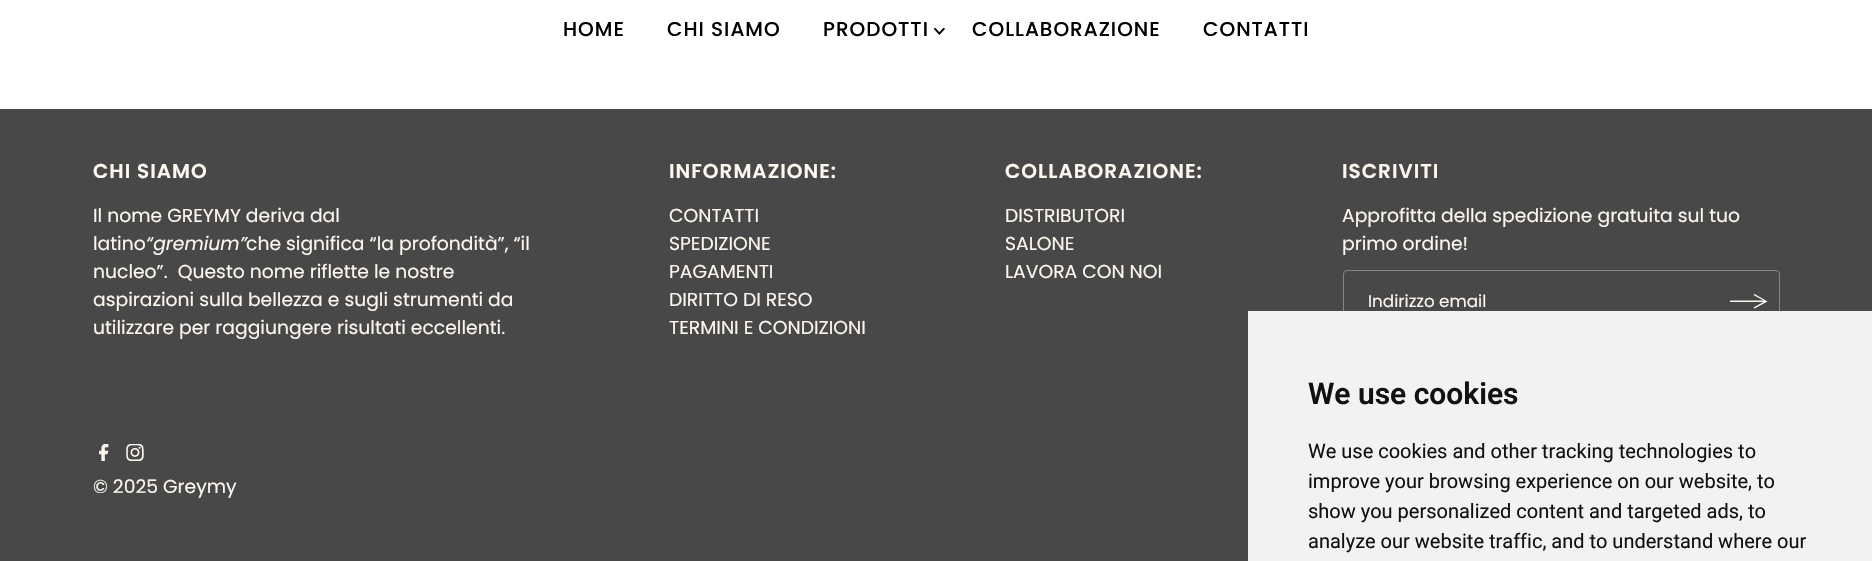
void draw(SkCanvas* canvas) {
	SkPaint paint;
	paint.setAntiAlias(true);
	auto spacedText = [&](const char* s, float x, float y, const SkFont& font, const SkPaint& ink, float letter, float word) {
		std::vector<SkGlyphID> glyphs(font.countText(s, strlen(s), SkTextEncoding::kUTF8));
		std::vector<float> xs(glyphs.size());
		font.textToGlyphs(s, strlen(s), SkTextEncoding::kUTF8, glyphs);
		font.getXPos(glyphs, xs, x);
		float extra = 0;
		for (size_t i = 0; i < glyphs.size(); i++) {
			xs[i] += extra;
			extra += letter + word * (glyphs[i] == font.unicharToGlyph(' '));
		}
		canvas->drawTextBlob(SkTextBlob::MakeFromPosHGlyphs(glyphs, xs, y, font), 0, 0, ink);
	};
	auto svgPath = [&](const char* data, bool evenOdd = false) {
		SkPath result = *SkParsePath::FromSVGString(data);
		if (evenOdd) result.setFillType(SkPathFillType::kEvenOdd);
		return result;
	};
	canvas->clear(0xffffffff);
	SkFont f1(fontMgr->matchFamilyStyle("Poppins", SkFontStyle(500, SkFontStyle::kNormal_Width, SkFontStyle::kUpright_Slant)), 20);
	f1.setSubpixel(true);
	paint.setColor(0xff000000);
	spacedText("HOME", 563, 36, f1, paint, 1, 0);
	spacedText("CHI SIAMO", 667, 36, f1, paint, 1, 0);
	spacedText("PRODOTTI", 823, 36, f1, paint, 1, 0);
	canvas->drawImageRect(SkImages::DeferredFromEncodedData(SkData::MakeFromFileName("img1.png")), SkRect::MakeXYWH(934, 28, 11, 7), SkSamplingOptions());
	spacedText("COLLABORAZIONE", 972, 36, f1, paint, 1, 0);
	spacedText("CONTATTI", 1203, 36, f1, paint, 1, 0);
	paint.setColor(0xff484848);
	canvas->drawRect(SkRect::MakeXYWH(0, 109, 1872, 452), paint);
	SkFont f2(fontMgr->matchFamilyStyle("Poppins", SkFontStyle(600, SkFontStyle::kNormal_Width, SkFontStyle::kUpright_Slant)), 20);
	f2.setSubpixel(true);
	paint.setColor(0xfffdf7ef);
	spacedText("CHI SIAMO", 93, 178, f2, paint, 1, 0);
	SkFont f3(fontMgr->matchFamilyStyle("Poppins", SkFontStyle::Normal()), 18.75);
	f3.setSubpixel(true);
	canvas->drawString("Il nome GREYMY deriva dal", 93, 222, f3, paint);
	canvas->drawString("latino", 93, 250, f3, paint);
	SkFont f4(fontMgr->matchFamilyStyle("Poppins", SkFontStyle::Italic()), 18.75);
	f4.setSubpixel(true);
	canvas->drawString("“gremium”", 146, 250, f4, paint);
	canvas->drawString("che significa “la profondità”, “il", 246, 250, f3, paint);
	canvas->drawString("nucleo”.  Questo nome riflette le nostre", 93, 278, f3, paint);
	canvas->drawString("aspirazioni sulla bellezza e sugli strumenti da", 93, 306, f3, paint);
	canvas->drawString("utilizzare per raggiungere risultati eccellenti.", 93, 334, f3, paint);
	spacedText("INFORMAZIONE:", 669, 178, f2, paint, 1, 0);
	canvas->drawString("CONTATTI", 669, 222, f3, paint);
	canvas->drawString("SPEDIZIONE", 669, 250, f3, paint);
	canvas->drawString("PAGAMENTI", 669, 278, f3, paint);
	canvas->drawString("DIRITTO DI RESO", 669, 306, f3, paint);
	canvas->drawString("TERMINI E CONDIZIONI", 669, 334, f3, paint);
	spacedText("COLLABORAZIONE:", 1005, 178, f2, paint, 1, 0);
	canvas->drawString("DISTRIBUTORI", 1005, 222, f3, paint);
	canvas->drawString("SALONE", 1005, 250, f3, paint);
	canvas->drawString("LAVORA CON NOI", 1005, 278, f3, paint);
	spacedText("ISCRIVITI", 1342, 178, f2, paint, 1, 0);
	canvas->drawString("Approfitta della spedizione gratuita sul tuo", 1342, 222, f3, paint);
	canvas->drawString("primo ordine!", 1342, 250, f3, paint);
	paint.setStroke(true);
	paint.setStrokeWidth(1);
	paint.setColor(0xff878582);
	canvas->drawRoundRect(SkRect::MakeXYWH(1343.5, 270.5, 436, 62), 3.5, 3.5, paint);
	SkFont f5(fontMgr->matchFamilyStyle("Poppins", SkFontStyle::Normal()), 16.75);
	f5.setSubpixel(true);
	paint.setStroke(false);
	paint.setColor(0xfffdf7ef);
	canvas->drawString("Indirizzo email", 1368, 307, f5, paint);
	canvas->drawPath(svgPath("M1754.5 294L1767.5 301.5L1754.5 308.5L1753.5 307.5L1763.5 302H1730V300.5H1763.5L1753.5 295Z"), paint);
	canvas->drawImageRect(SkImages::DeferredFromEncodedData(SkData::MakeFromFileName("img2.png")), SkRect::MakeXYWH(99, 444, 10, 17), SkSamplingOptions());
	canvas->drawImageRect(SkImages::DeferredFromEncodedData(SkData::MakeFromFileName("img3.png")), SkRect::MakeXYWH(126, 444, 18, 17), SkSamplingOptions());
	canvas->drawString("© 2025 Greymy", 93, 493, f3, paint);
	paint.setColor(0xfff2f2f2);
	canvas->drawRect(SkRect::MakeXYWH(1248, 311, 624, 250), paint);
	SkFont f6(fontMgr->matchFamilyStyle("Roboto", SkFontStyle(600, SkFontStyle::kNormal_Width, SkFontStyle::kUpright_Slant)), 30);
	f6.setSubpixel(true);
	paint.setColor(0xff111111);
	canvas->drawString("We use cookies", 1308, 404, f6, paint);
	SkFont f7(fontMgr->matchFamilyStyle("Roboto", SkFontStyle::Normal()), 20);
	f7.setSubpixel(true);
	canvas->drawString("We use cookies and other tracking technologies to", 1308, 458, f7, paint);
	canvas->drawString("improve your browsing experience on our website, to", 1308, 488, f7, paint);
	canvas->drawString("show you personalized content and targeted ads, to", 1308, 518, f7, paint);
	canvas->drawString("analyze our website traffic, and to understand where our", 1308, 548, f7, paint);
}
